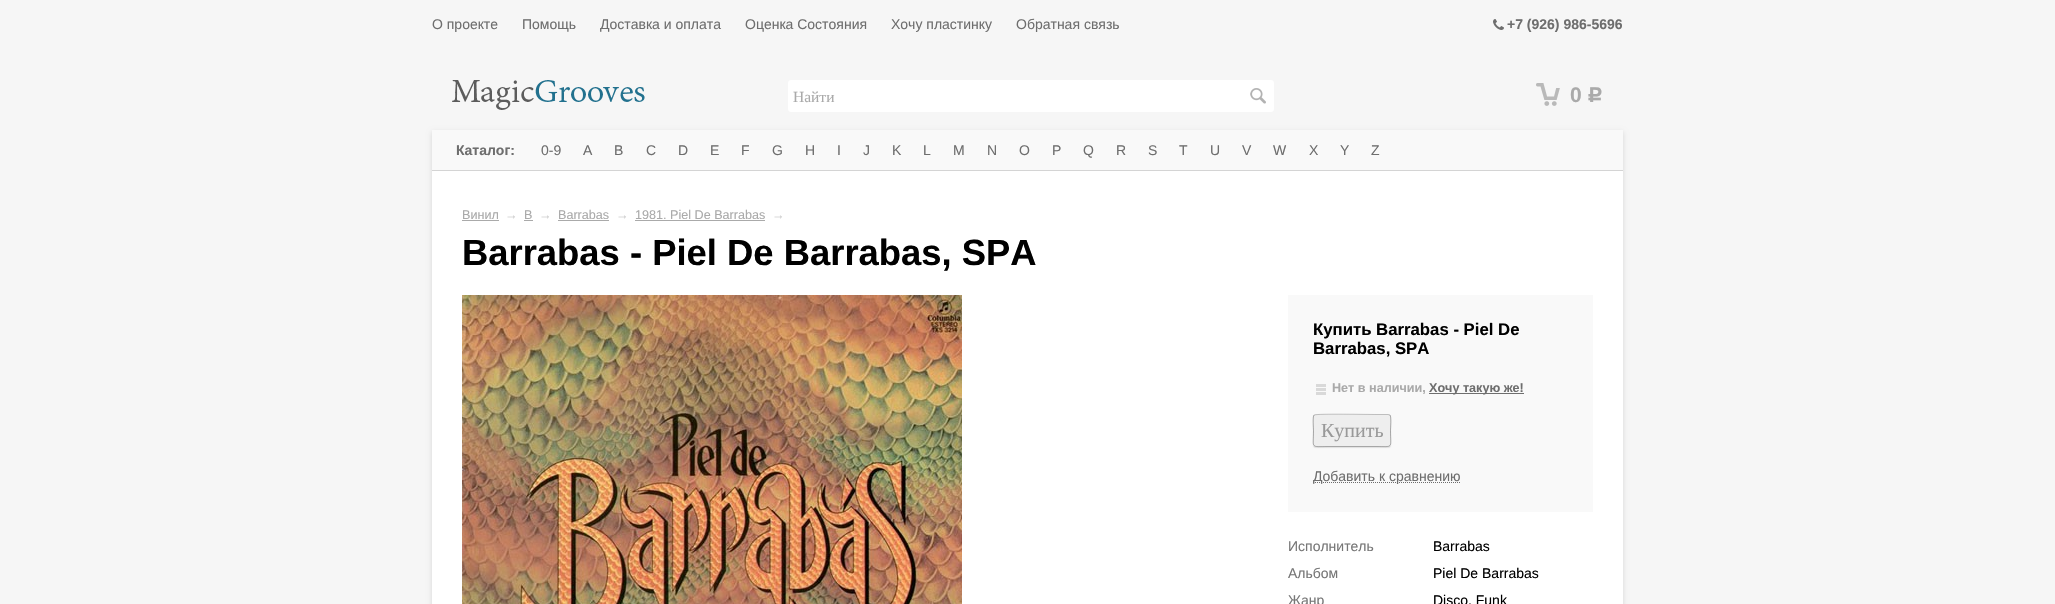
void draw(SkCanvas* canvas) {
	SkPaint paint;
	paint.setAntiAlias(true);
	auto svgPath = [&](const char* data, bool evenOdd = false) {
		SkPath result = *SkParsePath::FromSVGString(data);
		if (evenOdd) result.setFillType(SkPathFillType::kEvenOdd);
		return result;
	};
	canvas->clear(0xfff6f6f6);
	SkFont f1(fontMgr->matchFamilyStyle("Liberation Sans", SkFontStyle::Normal()), 14);
	f1.setSubpixel(true);
	paint.setColor(0xff6e6e6e);
	canvas->drawString("О проекте", 432, 29, f1, paint);
	canvas->drawString("Помощь", 522, 29, f1, paint);
	canvas->drawString("Доставка и оплата", 600, 29, f1, paint);
	canvas->drawString("Оценка Состояния", 745, 29, f1, paint);
	canvas->drawString("Хочу пластинку", 891, 29, f1, paint);
	canvas->drawString("Обратная связь", 1016, 29, f1, paint);
	canvas->drawImageRect(SkImages::DeferredFromEncodedData(SkData::MakeFromFileName("img1.png")), SkRect::MakeXYWH(1493, 19, 11, 11), SkSamplingOptions());
	SkFont f2(fontMgr->matchFamilyStyle("Liberation Sans", SkFontStyle::Bold()), 14);
	f2.setSubpixel(true);
	canvas->drawString("+7 (926) 986-5696", 1507, 29, f2, paint);
	canvas->drawImageRect(SkImages::DeferredFromEncodedData(SkData::MakeFromFileName("img2.png")), SkRect::MakeXYWH(452, 80, 193, 30), SkSamplingOptions());
	paint.setColor(0xffffffff);
	canvas->drawRoundRect(SkRect::MakeXYWH(788, 80, 486, 32), 3, 3, paint);
	SkFont f3(fontMgr->matchFamilyStyle("Liberation Serif", SkFontStyle::Normal()), 15.5);
	f3.setSubpixel(true);
	paint.setColor(0xffaaaaaa);
	canvas->drawString("Найти", 793, 102, f3, paint);
	canvas->drawImageRect(SkImages::DeferredFromEncodedData(SkData::MakeFromFileName("img3.png")), SkRect::MakeXYWH(1250, 88, 16, 16), SkSamplingOptions());
	canvas->drawImageRect(SkImages::DeferredFromEncodedData(SkData::MakeFromFileName("img4.png")), SkRect::MakeXYWH(1536, 83, 24, 23), SkSamplingOptions());
	SkFont f4(fontMgr->matchFamilyStyle("Liberation Sans", SkFontStyle::Bold()), 21);
	f4.setSubpixel(true);
	canvas->drawString("0", 1570, 102, f4, paint);
	SkFont f5(fontMgr->matchFamilyStyle("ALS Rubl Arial", SkFontStyle::Bold()), 21);
	f5.setSubpixel(true);
	canvas->drawString("Р", 1587, 102, f5, paint);
	paint.setColor(0x21000000);
	paint.setMaskFilter(SkMaskFilter::MakeBlur(kNormal_SkBlurStyle, 2.5));
	canvas->drawRect(SkRect::MakeXYWH(432, 132, 1191, 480), paint);
	paint.setMaskFilter(nullptr);
	paint.setColor(0xffffffff);
	canvas->drawRect(SkRect::MakeXYWH(432, 171, 1191, 433), paint);
	paint.setColor(0xfff9f9f9);
	canvas->drawRect(SkRect::MakeXYWH(432, 130, 1191, 40), paint);
	paint.setColor(0xffd4d4d4);
	canvas->drawRect(SkRect::MakeXYWH(432, 170, 1191, 1), paint);
	paint.setColor(0xff6e6e6e);
	canvas->drawString("Каталог:", 456, 155, f2, paint);
	canvas->drawString("0-9", 541, 155, f1, paint);
	canvas->drawString("A", 583, 155, f1, paint);
	canvas->drawString("B", 614, 155, f1, paint);
	canvas->drawString("C", 646, 155, f1, paint);
	canvas->drawString("D", 678, 155, f1, paint);
	canvas->drawString("E", 710, 155, f1, paint);
	canvas->drawString("F", 741, 155, f1, paint);
	canvas->drawString("G", 772, 155, f1, paint);
	canvas->drawString("H", 805, 155, f1, paint);
	canvas->drawString("I", 837, 155, f1, paint);
	canvas->drawString("J", 863, 155, f1, paint);
	canvas->drawString("K", 892, 155, f1, paint);
	canvas->drawString("L", 923, 155, f1, paint);
	canvas->drawString("M", 953, 155, f1, paint);
	canvas->drawString("N", 987, 155, f1, paint);
	canvas->drawString("O", 1019, 155, f1, paint);
	canvas->drawString("P", 1052, 155, f1, paint);
	canvas->drawString("Q", 1083, 155, f1, paint);
	canvas->drawString("R", 1116, 155, f1, paint);
	canvas->drawString("S", 1148, 155, f1, paint);
	canvas->drawString("T", 1179, 155, f1, paint);
	canvas->drawString("U", 1210, 155, f1, paint);
	canvas->drawString("V", 1242, 155, f1, paint);
	canvas->drawString("W", 1273, 155, f1, paint);
	canvas->drawString("X", 1309, 155, f1, paint);
	canvas->drawString("Y", 1340, 155, f1, paint);
	canvas->drawString("Z", 1371, 155, f1, paint);
	SkFont f6(fontMgr->matchFamilyStyle("Liberation Sans", SkFontStyle::Normal()), 12.6);
	f6.setSubpixel(true);
	paint.setColor(0xffaaaaaa);
	canvas->drawString("Винил", 462, 219, f6, paint);
	canvas->drawRect(SkRect::MakeXYWH(462, 220, 37, 1), paint);
	paint.setColor(0xffcccccc);
	canvas->drawString("→", 505, 219, f6, paint);
	paint.setColor(0xffaaaaaa);
	canvas->drawString("B", 524, 219, f6, paint);
	canvas->drawRect(SkRect::MakeXYWH(524, 220, 9, 1), paint);
	paint.setColor(0xffcccccc);
	canvas->drawString("→", 539, 219, f6, paint);
	paint.setColor(0xffaaaaaa);
	canvas->drawString("Barrabas", 558, 219, f6, paint);
	canvas->drawRect(SkRect::MakeXYWH(558, 220, 51, 1), paint);
	paint.setColor(0xffcccccc);
	canvas->drawString("→", 616, 219, f6, paint);
	paint.setColor(0xffaaaaaa);
	canvas->drawString("1981. Piel De Barrabas", 635, 219, f6, paint);
	canvas->drawRect(SkRect::MakeXYWH(635, 220, 130, 1), paint);
	paint.setColor(0xffcccccc);
	canvas->drawString("→", 772, 219, f6, paint);
	SkFont f7(fontMgr->matchFamilyStyle("Liberation Sans", SkFontStyle::Bold()), 36.4);
	f7.setSubpixel(true);
	paint.setColor(0xff000000);
	canvas->drawString("Barrabas - Piel De Barrabas, SPA", 462, 265, f7, paint);
	canvas->drawImageRect(SkImages::DeferredFromEncodedData(SkData::MakeFromFileName("img5.png")), SkRect::MakeXYWH(462, 295, 500, 309), SkSamplingOptions());
	paint.setColor(0xfff9f9f9);
	canvas->drawRect(SkRect::MakeXYWH(1288, 295, 305, 217), paint);
	SkFont f8(fontMgr->matchFamilyStyle("Liberation Sans", SkFontStyle::Bold()), 16.75);
	f8.setSubpixel(true);
	paint.setColor(0xff000000);
	canvas->drawString("Купить Barrabas - Piel De", 1313, 335, f8, paint);
	canvas->drawString("Barrabas, SPA", 1313, 354, f8, paint);
	canvas->drawImageRect(SkImages::DeferredFromEncodedData(SkData::MakeFromFileName("img6.png")), SkRect::MakeXYWH(1316, 384, 10, 11), SkSamplingOptions());
	SkFont f9(fontMgr->matchFamilyStyle("Liberation Sans", SkFontStyle::Bold()), 12.6);
	f9.setSubpixel(true);
	paint.setColor(0xffaaaaaa);
	canvas->drawString("Нет в наличии,", 1332, 392, f9, paint);
	paint.setColor(0xff6e6e6e);
	canvas->drawRect(SkRect::MakeXYWH(1429, 393, 95, 1), paint);
	canvas->drawString("Хочу такую же!", 1429, 392, f9, paint);
	paint.setColor(0x1a000000);
	paint.setMaskFilter(SkMaskFilter::MakeBlur(kNormal_SkBlurStyle, 0.5));
	canvas->drawRoundRect(SkRect::MakeXYWH(1313, 415, 78, 33), 3, 3, paint);
	paint.setMaskFilter(nullptr);
	paint.setColor(0xffeeeeee);
	canvas->drawRoundRect(SkRect::MakeXYWH(1313, 414, 78, 33), 3, 3, paint);
	paint.setStroke(true);
	paint.setStrokeWidth(1);
	paint.setColor(0x33000000);
	canvas->drawPath(svgPath("M1314 415H1314.5C1316.5 413.5 1369 414.5 1376 414.5H1388L1390 415"), paint);
	paint.setColor(0x4d000000);
	canvas->drawPath(svgPath("M1390 415C1391.5 417 1390.5 428 1390.5 430.5C1390.5 449 1394 446.5 1376 446.5H1328C1310 446.5 1313.5 449 1313.5 430.5C1313.5 428 1312.5 417 1314 415"), paint);
	SkFont f10(fontMgr->matchFamilyStyle("Liberation Serif", SkFontStyle::Normal()), 20);
	f10.setSubpixel(true);
	paint.setStroke(false);
	paint.setColor(0xff999999);
	canvas->drawString("Купить", 1321, 437, f10, paint);
	paint.setStroke(true);
	paint.setColor(0xff6e6e6e);
	paint.setPathEffect(SkDashPathEffect::Make({{1, 1}}, 0));
	canvas->drawPath(svgPath("M1313 482.5H1460"), paint);
	paint.setPathEffect(nullptr);
	paint.setStroke(false);
	canvas->drawString("Добавить к сравнению", 1313, 481, f1, paint);
	paint.setColor(0xff777777);
	canvas->drawString("Исполнитель", 1288, 551, f1, paint);
	paint.setColor(0xff000000);
	canvas->drawString("Barrabas", 1433, 551, f1, paint);
	paint.setColor(0xff777777);
	canvas->drawString("Альбом", 1288, 578, f1, paint);
	paint.setColor(0xff000000);
	canvas->drawString("Piel De Barrabas", 1433, 578, f1, paint);
	paint.setColor(0xff777777);
	canvas->drawString("Жанр", 1288, 605, f1, paint);
	paint.setColor(0xff000000);
	canvas->drawString("Disco, Funk", 1433, 605, f1, paint);
}
